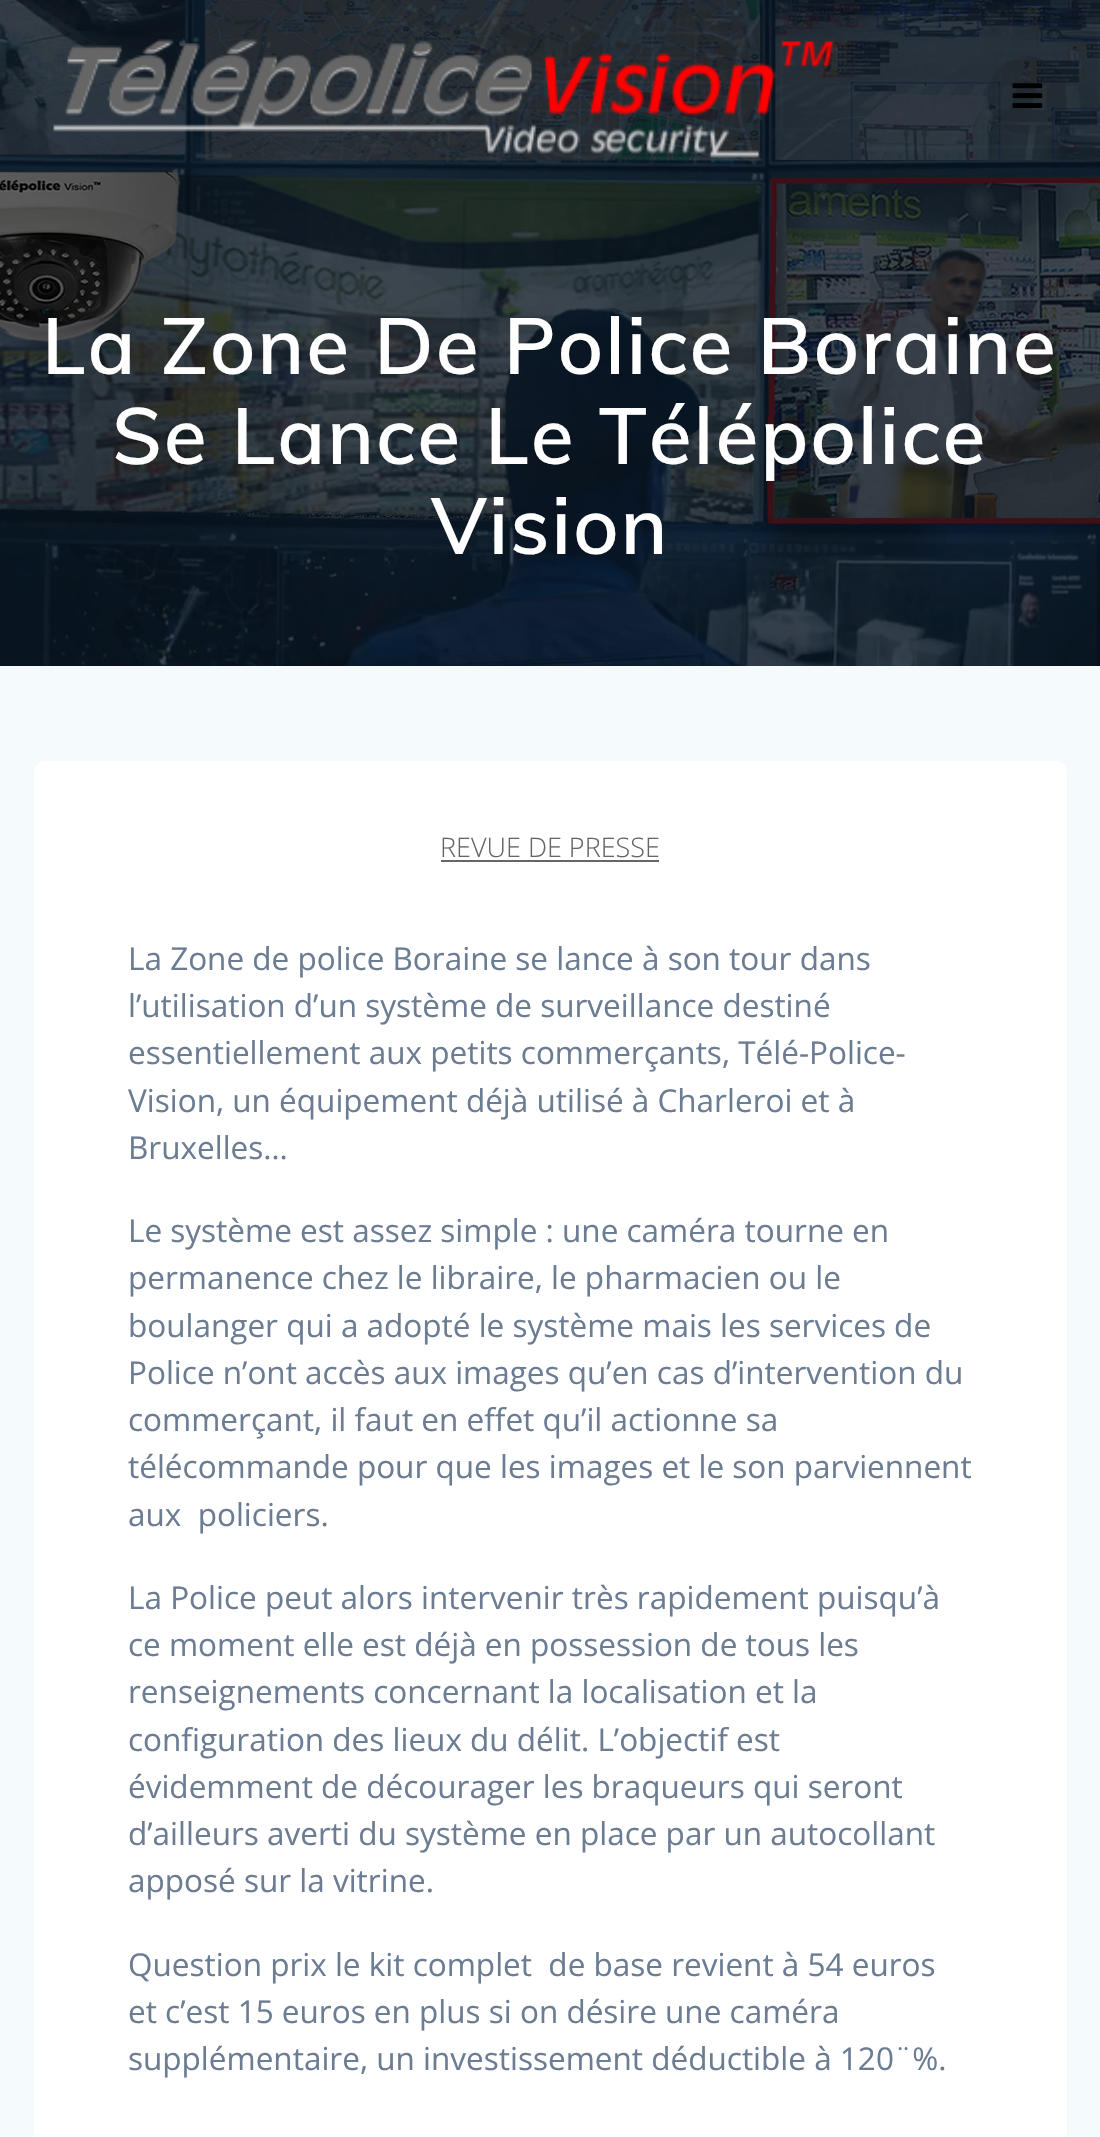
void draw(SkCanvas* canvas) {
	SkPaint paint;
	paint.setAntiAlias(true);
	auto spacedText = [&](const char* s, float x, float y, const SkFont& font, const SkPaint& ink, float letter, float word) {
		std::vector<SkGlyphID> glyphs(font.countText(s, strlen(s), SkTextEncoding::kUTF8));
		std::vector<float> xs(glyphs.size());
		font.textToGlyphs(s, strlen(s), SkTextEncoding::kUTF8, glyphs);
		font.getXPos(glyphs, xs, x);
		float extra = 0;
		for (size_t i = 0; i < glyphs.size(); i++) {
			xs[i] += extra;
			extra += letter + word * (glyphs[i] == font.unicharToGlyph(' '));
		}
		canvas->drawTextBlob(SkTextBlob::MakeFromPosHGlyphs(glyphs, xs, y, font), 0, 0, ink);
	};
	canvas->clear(0xffffffff);
	canvas->drawImageRect(SkImages::DeferredFromEncodedData(SkData::MakeFromFileName("img3.png")), SkRect::MakeXYWH(0, 0, 1100, 666), SkSamplingOptions());
	canvas->drawImageRect(SkImages::DeferredFromEncodedData(SkData::MakeFromFileName("img1.png")), SkRect::MakeXYWH(53, 39, 782, 119), SkSamplingOptions());
	paint.setColor(0x1a000000);
	canvas->drawCircle(1027.5, 95.5, 39.5, paint);
	canvas->drawImageRect(SkImages::DeferredFromEncodedData(SkData::MakeFromFileName("img2.png")), SkRect::MakeXYWH(1012, 83, 31, 25), SkSamplingOptions());
	SkFont f1(fontMgr->matchFamilyStyle("Muli", SkFontStyle(600, SkFontStyle::kNormal_Width, SkFontStyle::kUpright_Slant)), 78.75);
	f1.setSubpixel(true);
	paint.setColor(0xffffffff);
	spacedText("La Zone De Police Boraine", 42, 374, f1, paint, 2, 0);
	spacedText("Se Lance Le Télépolice", 112, 464, f1, paint, 2, 0);
	spacedText("Vision", 431, 554, f1, paint, 2, 0);
	paint.setColor(0xfff5fafd);
	canvas->drawRect(SkRect::MakeXYWH(0, 666, 1100, 1471), paint);
	paint.setColor(0xffffffff);
	canvas->drawRoundRect(SkRect::MakeXYWH(34, 761, 1033, 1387), 11, 11, paint);
	SkFont f2(fontMgr->matchFamilyStyle("Open Sans", SkFontStyle(300, SkFontStyle::kNormal_Width, SkFontStyle::kUpright_Slant)), 27);
	f2.setSubpixel(true);
	paint.setColor(0xff666666);
	canvas->drawString("REVUE DE PRESSE", 440, 857, f2, paint);
	canvas->drawRect(SkRect::MakeXYWH(441, 860, 218, 2), paint);
	SkFont f3(fontMgr->matchFamilyStyle("Open Sans", SkFontStyle::Normal()), 31.5);
	f3.setSubpixel(true);
	paint.setColor(0xff6b7c93);
	canvas->drawString("La Zone de police Boraine se lance à son tour dans", 128, 970, f3, paint);
	canvas->drawString("l’utilisation d’un système de surveillance destiné", 128, 1017, f3, paint);
	canvas->drawString("essentiellement aux petits commerçants, Télé-Police-", 128, 1064, f3, paint);
	canvas->drawString("Vision, un équipement déjà utilisé à Charleroi et à", 128, 1112, f3, paint);
	canvas->drawString("Bruxelles…", 128, 1159, f3, paint);
	canvas->drawString("Le système est assez simple : une caméra tourne en", 128, 1242, f3, paint);
	canvas->drawString("permanence chez le libraire, le pharmacien ou le", 128, 1289, f3, paint);
	canvas->drawString("boulanger qui a adopté le système mais les services de", 128, 1337, f3, paint);
	canvas->drawString("Police n’ont accès aux images qu’en cas d’intervention du", 128, 1384, f3, paint);
	canvas->drawString("commerçant, il faut en effet qu’il actionne sa", 128, 1431, f3, paint);
	canvas->drawString("télécommande pour que les images et le son parviennent", 128, 1478, f3, paint);
	canvas->drawString("aux  policiers.", 128, 1526, f3, paint);
	canvas->drawString("La Police peut alors intervenir très rapidement puisqu’à", 128, 1609, f3, paint);
	canvas->drawString("ce moment elle est déjà en possession de tous les", 128, 1656, f3, paint);
	canvas->drawString("renseignements concernant la localisation et la", 128, 1703, f3, paint);
	canvas->drawString("configuration des lieux du délit. L’objectif est", 128, 1751, f3, paint);
	canvas->drawString("évidemment de décourager les braqueurs qui seront", 128, 1798, f3, paint);
	canvas->drawString("d’ailleurs averti du système en place par un autocollant", 128, 1845, f3, paint);
	canvas->drawString("apposé sur la vitrine.", 128, 1892, f3, paint);
	canvas->drawString("Question prix le kit complet  de base revient à 54 euros", 128, 1976, f3, paint);
	canvas->drawString("et c’est 15 euros en plus si on désire une caméra", 128, 2023, f3, paint);
	canvas->drawString("supplémentaire, un investissement déductible à 120¨%.", 128, 2070, f3, paint);
}
